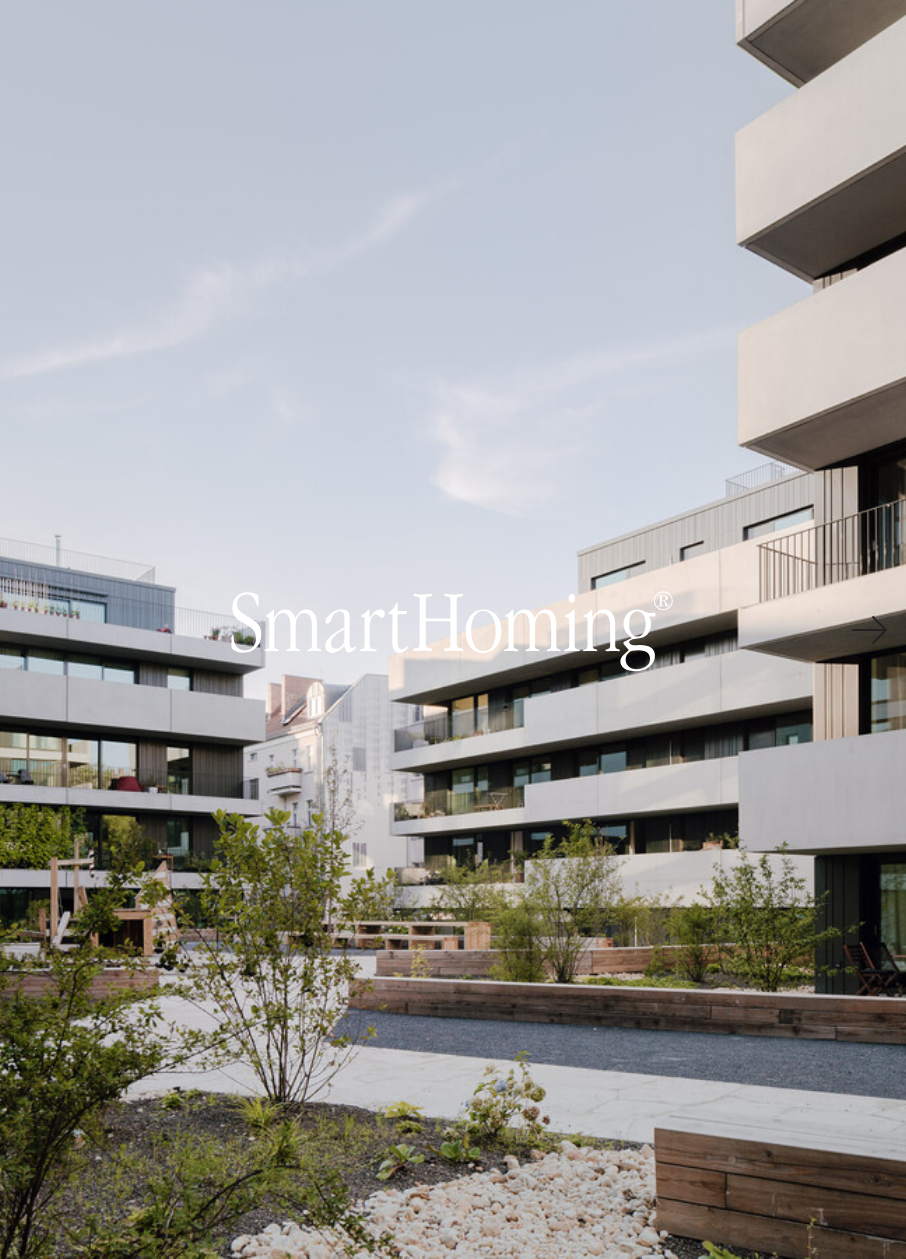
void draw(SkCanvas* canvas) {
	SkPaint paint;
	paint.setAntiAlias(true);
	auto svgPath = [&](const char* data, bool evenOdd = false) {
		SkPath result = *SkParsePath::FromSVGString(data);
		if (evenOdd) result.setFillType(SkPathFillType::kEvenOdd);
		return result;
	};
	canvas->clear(0xffffffff);
	canvas->drawImageRect(SkImages::DeferredFromEncodedData(SkData::MakeFromFileName("img1.png")), SkRect::MakeXYWH(0, 0, 906, 1259), SkSamplingOptions());
	paint.setStroke(true);
	paint.setStrokeWidth(2);
	paint.setColor(0xff241f21);
	canvas->drawPath(svgPath("M872.5 643.5L886 630L872.5 616.5M885 630H852"), paint);
	canvas->drawImageRect(SkImages::DeferredFromEncodedData(SkData::MakeFromFileName("img2.png")), SkRect::MakeXYWH(231, 591, 442, 81), SkSamplingOptions());
}
